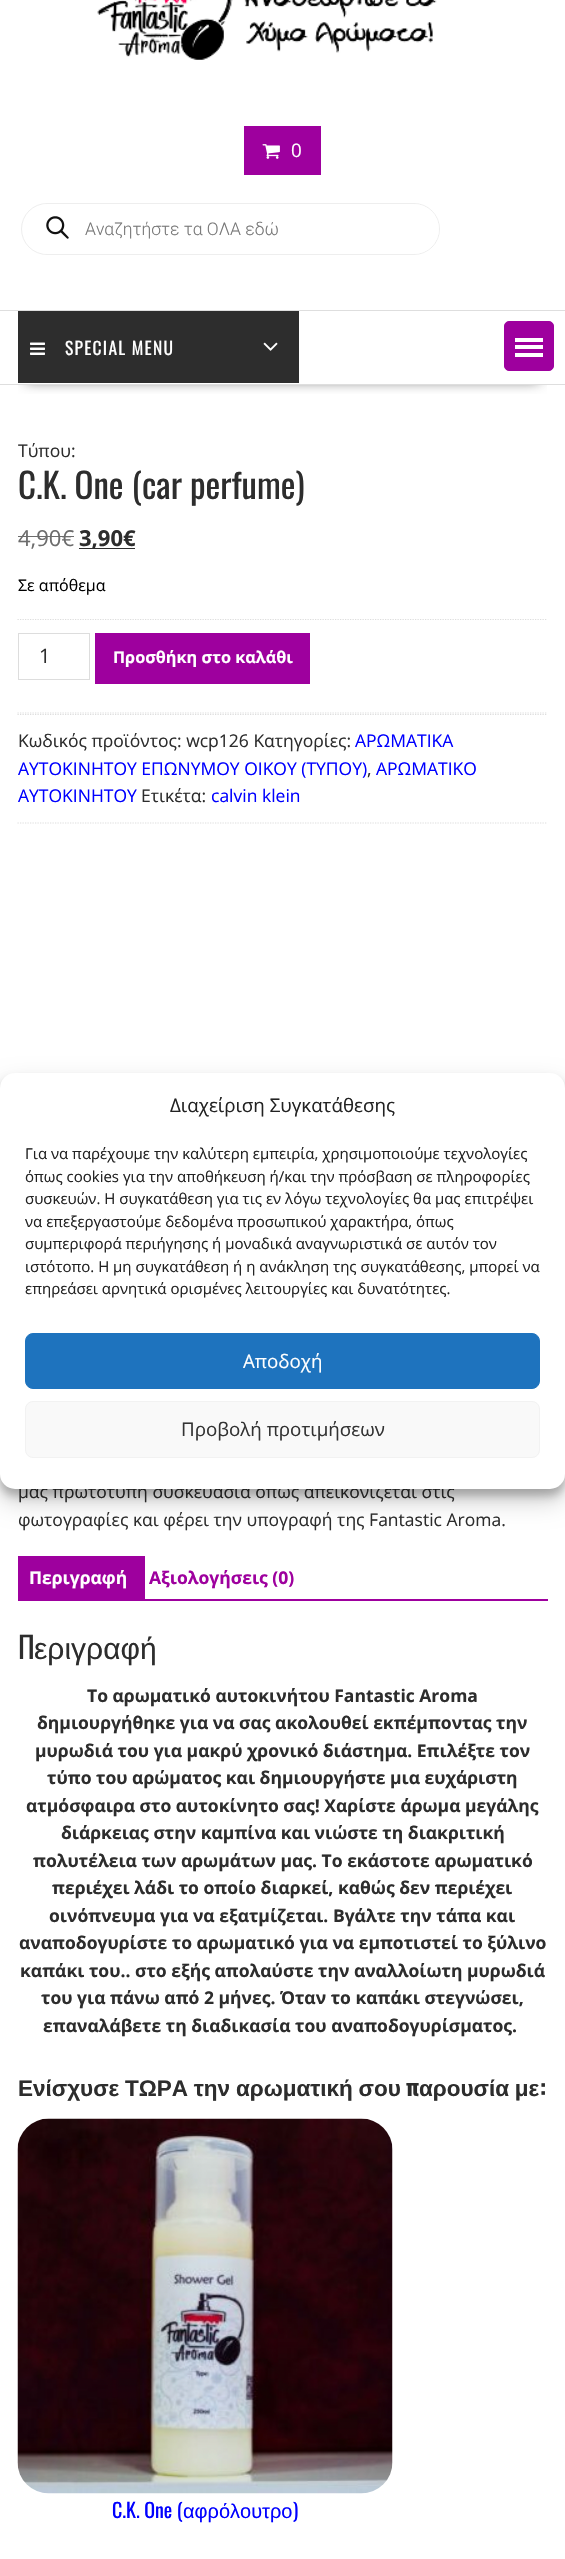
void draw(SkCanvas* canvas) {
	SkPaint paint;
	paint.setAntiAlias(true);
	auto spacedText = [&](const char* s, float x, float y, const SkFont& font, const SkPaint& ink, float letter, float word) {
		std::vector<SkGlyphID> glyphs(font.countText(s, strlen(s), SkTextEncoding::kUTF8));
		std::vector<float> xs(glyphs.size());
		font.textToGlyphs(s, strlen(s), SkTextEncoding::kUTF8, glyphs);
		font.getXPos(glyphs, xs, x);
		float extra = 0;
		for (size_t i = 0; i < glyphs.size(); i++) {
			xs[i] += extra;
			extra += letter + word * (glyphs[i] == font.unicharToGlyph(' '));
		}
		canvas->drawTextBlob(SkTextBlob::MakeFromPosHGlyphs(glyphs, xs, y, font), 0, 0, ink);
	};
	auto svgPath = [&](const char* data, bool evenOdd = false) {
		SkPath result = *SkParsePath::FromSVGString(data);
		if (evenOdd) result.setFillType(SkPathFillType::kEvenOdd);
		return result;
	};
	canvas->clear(0xffffffff);
	canvas->drawImageRect(SkImages::DeferredFromEncodedData(SkData::MakeFromFileName("img1.png")), SkRect::MakeXYWH(97, 0, 340, 60), SkSamplingOptions());
	paint.setColor(0xff9e009e);
	canvas->drawRect(SkRect::MakeXYWH(244, 126, 77, 49), paint);
	canvas->drawImageRect(SkImages::DeferredFromEncodedData(SkData::MakeFromFileName("img2.png")), SkRect::MakeXYWH(262, 144, 18, 15), SkSamplingOptions());
	SkFont f1(fontMgr->matchFamilyStyle("Open Sans", SkFontStyle::Normal()), 18.75);
	f1.setSubpixel(true);
	paint.setColor(0xffffffff);
	canvas->drawString("0", 291, 157, f1, paint);
	paint.setStroke(true);
	paint.setStrokeWidth(1);
	paint.setColor(0xffeeeeee);
	canvas->drawRoundRect(SkRect::MakeXYWH(21.5, 203.5, 418, 51), 25.5, 25.5, paint);
	paint.setStroke(false);
	paint.setColor(0xffffffff);
	canvas->drawRoundRect(SkRect::MakeXYWH(23, 204, 416, 50), 25, 25, paint);
	canvas->drawImageRect(SkImages::DeferredFromEncodedData(SkData::MakeFromFileName("img3.png")), SkRect::MakeXYWH(46, 216, 23, 23), SkSamplingOptions());
	SkFont f2(fontMgr->matchFamilyStyle("Roboto", SkFontStyle(300, SkFontStyle::kNormal_Width, SkFontStyle::kUpright_Slant)), 17.5);
	f2.setSubpixel(true);
	paint.setColor(0xff777777);
	canvas->drawString("Αναζητήστε τα ΟΛΑ εδώ", 85, 235, f2, paint);
	canvas->save();
	canvas->clipRect(SkRect::MakeXYWH(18, 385, 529, 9));
	paint.setColor(0xbf000000);
	paint.setMaskFilter(SkMaskFilter::MakeBlur(kNormal_SkBlurStyle, 7));
	canvas->drawRect(SkRect::MakeXYWH(26, 358, 513, 22), paint);
	paint.setMaskFilter(nullptr);
	canvas->restore();
	paint.setColor(0xffdedede);
	canvas->drawRect(SkRect::MakeXYWH(0, 310, 565, 1), paint);
	canvas->drawRect(SkRect::MakeXYWH(0, 384, 565, 1), paint);
	paint.setColor(0xff2d2d2d);
	canvas->drawRect(SkRect::MakeXYWH(18, 311, 281, 72), paint);
	canvas->drawImageRect(SkImages::DeferredFromEncodedData(SkData::MakeFromFileName("img4.png")), SkRect::MakeXYWH(30, 342, 15, 13), SkSamplingOptions());
	SkFont f3(fontMgr->matchFamilyStyle("Oswald", SkFontStyle::Normal()), 17.5);
	f3.setSubpixel(true);
	paint.setColor(0xffffffff);
	spacedText("SPECIAL MENU", 65, 355, f3, paint, 1.25, 0);
	canvas->drawImageRect(SkImages::DeferredFromEncodedData(SkData::MakeFromFileName("img5.png")), SkRect::MakeXYWH(263, 342, 15, 9), SkSamplingOptions());
	paint.setColor(0xff9e009e);
	canvas->drawRoundRect(SkRect::MakeXYWH(504.5, 321.5, 49, 49), 4.5, 4.5, paint);
	paint.setStroke(true);
	canvas->drawRoundRect(SkRect::MakeXYWH(504.5, 321.5, 49, 49), 4.5, 4.5, paint);
	paint.setStroke(false);
	paint.setColor(0xffffffff);
	canvas->drawRect(SkRect::MakeXYWH(515, 353, 28, 4), paint);
	canvas->drawRect(SkRect::MakeXYWH(515, 345, 28, 4), paint);
	canvas->drawRect(SkRect::MakeXYWH(515, 338, 28, 4), paint);
	SkFont f4(fontMgr->matchFamilyStyle("Open Sans", SkFontStyle::Normal()), 17.5);
	f4.setSubpixel(true);
	paint.setColor(0xff2d2d2d);
	canvas->drawString("Τύπου:", 18, 457, f4, paint);
	SkFont f5(fontMgr->matchFamilyStyle("Oswald", SkFontStyle::Normal()), 35);
	f5.setSubpixel(true);
	canvas->drawString("C.K. One (car perfume)", 18, 499, f5, paint);
	SkFont f6(fontMgr->matchFamilyStyle("Open Sans", SkFontStyle::Normal()), 22);
	f6.setSubpixel(true);
	paint.setColor(0xff6c6c6c);
	canvas->drawString("4,90€", 18, 546, f6, paint);
	canvas->drawRect(SkRect::MakeXYWH(18, 536, 56, 1), paint);
	paint.setColor(0xff2d2d2d);
	canvas->drawRect(SkRect::MakeXYWH(79, 548, 56, 1), paint);
	SkFont f7(fontMgr->matchFamilyStyle("Open Sans", SkFontStyle::Bold()), 22);
	f7.setSubpixel(true);
	canvas->drawString("3,90€", 79, 546, f7, paint);
	SkFont f8(fontMgr->matchFamilyStyle("Open Sans", SkFontStyle::Normal()), 16);
	f8.setSubpixel(true);
	paint.setColor(0xff000000);
	canvas->drawString("Σε απόθεμα", 18, 591, f8, paint);
	paint.setStroke(true);
	paint.setStrokeWidth(1.2);
	paint.setColor(0xffdddddd);
	paint.setPathEffect(SkDashPathEffect::Make({{1.25f, 1.25f}}, 0));
	canvas->drawPath(svgPath("M17.5 619.5H547.5"), paint);
	paint.setPathEffect(nullptr);
	paint.setPathEffect(SkDashPathEffect::Make({{1.25f, 1.25f}}, 0));
	canvas->drawPath(svgPath("M17.5 713H547.5"), paint);
	paint.setPathEffect(nullptr);
	paint.setStrokeWidth(1);
	canvas->drawRect(SkRect::MakeXYWH(18.5, 633.5, 71, 46), paint);
	SkFont f9(fontMgr->matchFamilyStyle("Open Sans", SkFontStyle::Normal()), 20);
	f9.setSubpixel(true);
	paint.setStroke(false);
	paint.setColor(0xff2d2d2d);
	canvas->drawString("1", 39, 663, f9, paint);
	paint.setColor(0xff9e009e);
	canvas->drawRect(SkRect::MakeXYWH(95, 633, 215, 51), paint);
	SkFont f10(fontMgr->matchFamilyStyle("Open Sans", SkFontStyle::Bold()), 16.25);
	f10.setSubpixel(true);
	paint.setColor(0xffffffff);
	canvas->drawString("Προσθήκη στο καλάθι", 113, 663, f10, paint);
	paint.setStroke(true);
	paint.setStrokeWidth(1.2);
	paint.setColor(0xffdddddd);
	paint.setPathEffect(SkDashPathEffect::Make({{1.25f, 1.25f}}, 0));
	canvas->drawPath(svgPath("M17.5 714.5H547.5"), paint);
	paint.setPathEffect(nullptr);
	paint.setPathEffect(SkDashPathEffect::Make({{1.25f, 1.25f}}, 0));
	canvas->drawPath(svgPath("M17.5 823H547.5"), paint);
	paint.setPathEffect(nullptr);
	paint.setStroke(false);
	paint.setColor(0xff2d2d2d);
	canvas->drawString("Κωδικός προϊόντος: wcp126 Κατηγορίες:", 18, 747, f4, paint);
	paint.setColor(0xff0000ff);
	canvas->drawString("ΑΡΩΜΑΤΙΚΑ", 355, 747, f4, paint);
	canvas->drawString("ΑΥΤΟΚΙΝΗΤΟΥ ΕΠΩΝΥΜΟΥ ΟΙΚΟΥ (ΤΥΠΟΥ)", 18, 775, f4, paint);
	paint.setColor(0xff2d2d2d);
	canvas->drawString(",", 367, 775, f4, paint);
	paint.setColor(0xff0000ff);
	canvas->drawString("ΑΡΩΜΑΤΙΚΟ", 376, 775, f4, paint);
	canvas->drawString("ΑΥΤΟΚΙΝΗΤΟΥ", 18, 802, f4, paint);
	paint.setColor(0xff2d2d2d);
	canvas->drawString("Ετικέτα:", 141, 802, f4, paint);
	paint.setColor(0xff0000ff);
	canvas->drawString("calvin klein", 211, 802, f4, paint);
	paint.setColor(0xff2d2d2d);
	canvas->drawString("μας πρωτότυπη συσκευασία όπως απεικονίζεται στις", 18, 1498, f4, paint);
	canvas->drawString("φωτογραφίες και φέρει την υπογραφή της Fantastic Aroma.", 18, 1526, f4, paint);
	paint.setColor(0xff9e009e);
	canvas->drawRect(SkRect::MakeXYWH(18, 1556, 127, 45), paint);
	SkFont f11(fontMgr->matchFamilyStyle("Open Sans", SkFontStyle::Bold()), 17.5);
	f11.setSubpixel(true);
	paint.setColor(0xffffffff);
	canvas->drawString("Περιγραφή", 29, 1584, f11, paint);
	paint.setColor(0xff9e009e);
	canvas->drawString("Αξιολογήσεις (0)", 149, 1584, f11, paint);
	canvas->drawRect(SkRect::MakeXYWH(145, 1599, 403, 2), paint);
	SkFont f12(fontMgr->matchFamilyStyle("Oswald", SkFontStyle::Normal()), 30);
	f12.setSubpixel(true);
	paint.setColor(0xff2d2d2d);
	canvas->drawString("Π", 18, 1659, f12, paint);
	SkFont f13(fontMgr->matchFamilyStyle("Liberation Sans", SkFontStyle::Normal()), 30);
	f13.setSubpixel(true);
	canvas->drawString("εριγραφή", 34, 1659, f13, paint);
	canvas->drawString("Το αρωματικό αυτοκινήτου Fantastic Aroma", 87, 1702, f11, paint);
	canvas->drawString("δημιουργήθηκε για να σας ακολουθεί εκπέμποντας την", 37, 1729, f11, paint);
	canvas->drawString("μυρωδιά του για μακρύ χρονικό διάστημα. Επιλέξτε τον", 35, 1757, f11, paint);
	canvas->drawString("τύπο του αρώματος και δημιουργήστε μια ευχάριστη", 47, 1784, f11, paint);
	canvas->drawString("ατμόσφαιρα στο αυτοκίνητο σας! Χαρίστε άρωμα μεγάλης", 26, 1812, f11, paint);
	canvas->drawString("διάρκειας στην καμπίνα και νιώστε τη διακριτική", 61, 1839, f11, paint);
	canvas->drawString("πολυτέλεια των αρωμάτων μας. Το εκάστοτε αρωματικό", 33, 1867, f11, paint);
	canvas->drawString("περιέχει λάδι το οποίο διαρκεί, καθώς δεν περιέχει", 52, 1894, f11, paint);
	canvas->drawString("οινόπνευμα για να εξατμίζεται. Βγάλτε την τάπα και", 49, 1922, f11, paint);
	canvas->drawString("αναποδογυρίστε το αρωματικό για να εμποτιστεί το ξύλινο", 19, 1949, f11, paint);
	canvas->drawString("καπάκι του.. στο εξής απολαύστε την αναλλοίωτη μυρωδιά", 20, 1977, f11, paint);
	canvas->drawString("του για πάνω από 2 μήνες. Όταν το καπάκι στεγνώσει,", 41, 2004, f11, paint);
	canvas->drawString("επαναλάβετε τη διαδικασία του αναποδογυρίσματος.", 43, 2032, f11, paint);
	SkFont f14(fontMgr->matchFamilyStyle("Liberation Sans", SkFontStyle::Bold()), 22.5);
	f14.setSubpixel(true);
	spacedText("Ενίσχυσε ΤΩΡΑ την αρωματική σου", 18, 2096, f14, paint, 0, -0.5);
	SkFont f15(fontMgr->matchFamilyStyle("Oswald", SkFontStyle::Bold()), 22.5);
	f15.setSubpixel(true);
	canvas->drawString("π", 406, 2096, f15, paint);
	spacedText("αρουσία με", 419, 2096, f14, paint, 0, -0.5);
	canvas->drawString(":", 540, 2096, f15, paint);
	canvas->drawImageRect(SkImages::DeferredFromEncodedData(SkData::MakeFromFileName("img6.png")), SkRect::MakeXYWH(17, 2118, 376, 376), SkSamplingOptions());
	SkFont f16(fontMgr->matchFamilyStyle("Oswald", SkFontStyle::Normal()), 20);
	f16.setSubpixel(true);
	paint.setColor(0xff0000ff);
	canvas->drawString("C.K. One (", 112, 2518, f16, paint);
	SkFont f17(fontMgr->matchFamilyStyle("Liberation Sans", SkFontStyle::Normal()), 20);
	f17.setSubpixel(true);
	canvas->drawString("αφρόλουτρο", 183, 2518, f17, paint);
	canvas->drawString(")", 293, 2518, f16, paint);
	paint.setColor(0x3b000000);
	paint.setMaskFilter(SkMaskFilter::MakeBlur(kNormal_SkBlurStyle, 4));
	canvas->drawRoundRect(SkRect::MakeXYWH(0, 1080, 565, 416), 15, 15, paint);
	paint.setMaskFilter(nullptr);
	paint.setColor(0x30000000);
	paint.setMaskFilter(SkMaskFilter::MakeBlur(kNormal_SkBlurStyle, 12.5));
	canvas->drawRoundRect(SkRect::MakeXYWH(0, 1085, 565, 416), 15, 15, paint);
	paint.setMaskFilter(nullptr);
	paint.setColor(0xffffffff);
	canvas->drawRoundRect(SkRect::MakeXYWH(0, 1073, 565, 416), 15, 15, paint);
	paint.setColor(0xff222222);
	canvas->drawString("Διαχείριση Συγκατάθεσης", 170, 1112, f1, paint);
	SkFont f18(fontMgr->matchFamilyStyle("Open Sans", SkFontStyle::Normal()), 15);
	f18.setSubpixel(true);
	canvas->drawString("Για να παρέχουμε την καλύτερη εμπειρία, χρησιμοποιούμε τεχνολογίες", 25, 1159, f18, paint);
	canvas->drawString("όπως cookies για την αποθήκευση ή/και την πρόσβαση σε πληροφορίες", 25, 1182, f18, paint);
	canvas->drawString("συσκευών. Η συγκατάθεση για τις εν λόγω τεχνολογίες θα μας επιτρέψει", 25, 1204, f18, paint);
	canvas->drawString("να επεξεργαστούμε δεδομένα προσωπικού χαρακτήρα, όπως", 25, 1227, f18, paint);
	canvas->drawString("συμπεριφορά περιήγησης ή μοναδικά αναγνωριστικά σε αυτόν τον", 25, 1249, f18, paint);
	canvas->drawString("ιστότοπο. Η μη συγκατάθεση ή η ανάκληση της συγκατάθεσης, μπορεί να", 25, 1272, f18, paint);
	canvas->drawString("επηρεάσει αρνητικά ορισμένες λειτουργίες και δυνατότητες.", 25, 1294, f18, paint);
	paint.setColor(0xff1e73be);
	canvas->drawRoundRect(SkRect::MakeXYWH(25.5, 1333.5, 514, 55), 7.5, 7.5, paint);
	paint.setStroke(true);
	paint.setStrokeWidth(1);
	canvas->drawRoundRect(SkRect::MakeXYWH(25.5, 1333.5, 514, 55), 7.5, 7.5, paint);
	paint.setStroke(false);
	paint.setColor(0xffffffff);
	canvas->drawString("Αποδοχή", 243, 1368, f1, paint);
	paint.setColor(0xfff9f9f9);
	canvas->drawRoundRect(SkRect::MakeXYWH(25.5, 1401.5, 514, 56), 7.5, 7.5, paint);
	paint.setStroke(true);
	paint.setColor(0xfff2f2f2);
	canvas->drawRoundRect(SkRect::MakeXYWH(25.5, 1401.5, 514, 56), 7.5, 7.5, paint);
	paint.setStroke(false);
	paint.setColor(0xff333333);
	canvas->drawString("Προβολή προτιμήσεων", 181, 1436, f1, paint);
}
